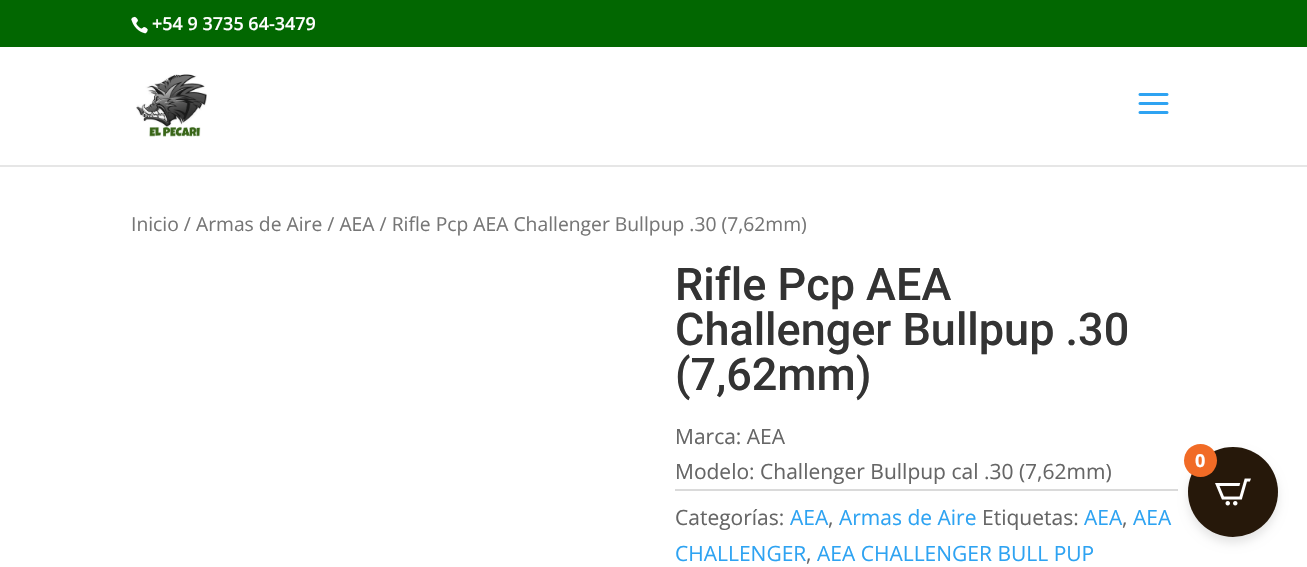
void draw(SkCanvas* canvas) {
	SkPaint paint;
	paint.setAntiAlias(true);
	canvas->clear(0xffffffff);
	paint.setColor(0xff026701);
	canvas->drawRect(SkRect::MakeXYWH(0, 0, 1307, 47), paint);
	canvas->drawImageRect(SkImages::DeferredFromEncodedData(SkData::MakeFromFileName("img1.png")), SkRect::MakeXYWH(131, 16, 17, 18), SkSamplingOptions());
	SkFont f1(fontMgr->matchFamilyStyle("Open Sans", SkFontStyle(600, SkFontStyle::kNormal_Width, SkFontStyle::kUpright_Slant)), 18);
	f1.setSubpixel(true);
	paint.setColor(0xffffffff);
	canvas->drawString("+54 9 3735 64-3479", 152, 30, f1, paint);
	paint.setColor(0xffe6e6e6);
	canvas->drawRect(SkRect::MakeXYWH(0, 165, 1307, 2), paint);
	canvas->drawImageRect(SkImages::DeferredFromEncodedData(SkData::MakeFromFileName("img2.png")), SkRect::MakeXYWH(136, 74, 71, 63), SkSamplingOptions());
	canvas->drawImageRect(SkImages::DeferredFromEncodedData(SkData::MakeFromFileName("img3.png")), SkRect::MakeXYWH(1138, 93, 31, 21), SkSamplingOptions());
	SkFont f2(fontMgr->matchFamilyStyle("Open Sans", SkFontStyle::Normal()), 19.3);
	f2.setSubpixel(true);
	paint.setColor(0xff767676);
	canvas->drawString("Inicio / Armas de Aire / AEA / Rifle Pcp AEA Challenger Bullpup .30 (7,62mm)", 131, 231, f2, paint);
	SkFont f3(fontMgr->matchFamilyStyle("Roboto", SkFontStyle(500, SkFontStyle::kNormal_Width, SkFontStyle::kUpright_Slant)), 45);
	f3.setSubpixel(true);
	paint.setColor(0xff333333);
	canvas->drawString("Rifle Pcp AEA", 675, 300, f3, paint);
	canvas->drawString("Challenger Bullpup .30", 675, 345, f3, paint);
	canvas->drawString("(7,62mm)", 675, 390, f3, paint);
	SkFont f4(fontMgr->matchFamilyStyle("Open Sans", SkFontStyle::Normal()), 21);
	f4.setSubpixel(true);
	paint.setColor(0xff666666);
	canvas->drawString("Marca: AEA", 675, 444, f4, paint);
	canvas->drawString("Modelo: Challenger Bullpup cal .30 (7,62mm)", 675, 479, f4, paint);
	paint.setColor(0xffdadada);
	canvas->drawRect(SkRect::MakeXYWH(675, 489, 503, 2), paint);
	paint.setColor(0xff666666);
	canvas->drawString("Categorías:", 675, 525, f4, paint);
	paint.setColor(0xff2ea3f2);
	canvas->drawString("AEA", 790, 525, f4, paint);
	paint.setColor(0xff666666);
	canvas->drawString(",", 828, 525, f4, paint);
	paint.setColor(0xff2ea3f2);
	canvas->drawString("Armas de Aire", 839, 525, f4, paint);
	paint.setColor(0xff666666);
	canvas->drawString("Etiquetas:", 982, 525, f4, paint);
	paint.setColor(0xff2ea3f2);
	canvas->drawString("AEA", 1084, 525, f4, paint);
	paint.setColor(0xff666666);
	canvas->drawString(",", 1122, 525, f4, paint);
	paint.setColor(0xff2ea3f2);
	canvas->drawString("AEA", 1133, 525, f4, paint);
	canvas->drawString("CHALLENGER", 675, 561, f4, paint);
	paint.setColor(0xff666666);
	canvas->drawString(",", 806, 561, f4, paint);
	paint.setColor(0xff2ea3f2);
	canvas->drawString("AEA CHALLENGER BULL PUP", 817, 561, f4, paint);
	paint.setColor(0x1a000000);
	paint.setMaskFilter(SkMaskFilter::MakeBlur(kNormal_SkBlurStyle, 5));
	canvas->drawRoundRect(SkRect::MakeXYWH(1188, 453, 90, 90), 45, 45, paint);
	paint.setMaskFilter(nullptr);
	paint.setColor(0xff26180a);
	canvas->drawCircle(1233, 492, 45, paint);
	paint.setColor(0xfff16b26);
	canvas->drawCircle(1200.5, 460.5, 16.5, paint);
	SkFont f5(fontMgr->matchFamilyStyle("Open Sans", SkFontStyle::Bold()), 18);
	f5.setSubpixel(true);
	paint.setColor(0xffffffff);
	canvas->drawString("0", 1195, 467, f5, paint);
	canvas->drawImageRect(SkImages::DeferredFromEncodedData(SkData::MakeFromFileName("img4.png")), SkRect::MakeXYWH(1215, 478, 36, 28), SkSamplingOptions());
}
